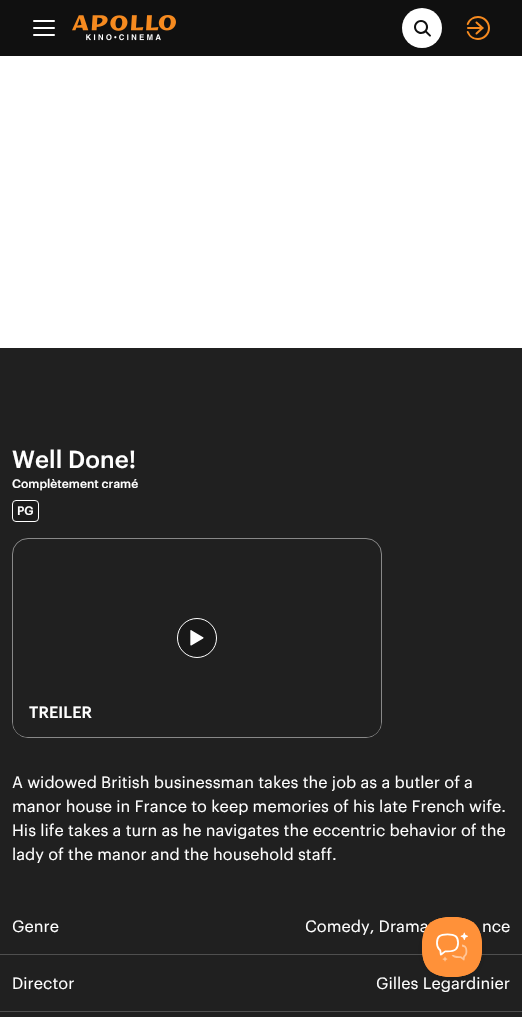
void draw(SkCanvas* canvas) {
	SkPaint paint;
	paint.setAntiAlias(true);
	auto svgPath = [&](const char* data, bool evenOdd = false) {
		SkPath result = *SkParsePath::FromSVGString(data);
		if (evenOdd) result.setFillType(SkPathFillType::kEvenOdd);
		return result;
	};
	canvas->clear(0xffffffff);
	paint.setColor(0xff101010);
	canvas->drawRect(SkRect::MakeXYWH(0, 0, 522, 56), paint);
	canvas->drawImageRect(SkImages::DeferredFromEncodedData(SkData::MakeFromFileName("img1.png")), SkRect::MakeXYWH(33, 20, 22, 16), SkSamplingOptions());
	canvas->drawImageRect(SkImages::DeferredFromEncodedData(SkData::MakeFromFileName("img2.png")), SkRect::MakeXYWH(72, 15, 104, 26), SkSamplingOptions());
	paint.setColor(0xffffffff);
	canvas->drawCircle(422, 28, 20, paint);
	canvas->drawImageRect(SkImages::DeferredFromEncodedData(SkData::MakeFromFileName("img3.png")), SkRect::MakeXYWH(414, 20, 17, 17), SkSamplingOptions());
	canvas->drawImageRect(SkImages::DeferredFromEncodedData(SkData::MakeFromFileName("img4.png")), SkRect::MakeXYWH(466, 16, 24, 24), SkSamplingOptions());
	paint.setColor(0xff202020);
	canvas->drawRect(SkRect::MakeXYWH(0, 348, 522, 669), paint);
	SkFont f1(fontMgr->matchFamilyStyle("Graphik", SkFontStyle(500, SkFontStyle::kNormal_Width, SkFontStyle::kUpright_Slant)), 24);
	f1.setSubpixel(true);
	paint.setColor(0xffffffff);
	canvas->drawString("Well Done!", 12, 468, f1, paint);
	SkFont f2(fontMgr->matchFamilyStyle("Graphik", SkFontStyle(500, SkFontStyle::kNormal_Width, SkFontStyle::kUpright_Slant)), 12);
	f2.setSubpixel(true);
	canvas->drawString("Complètement cramé", 12, 488, f2, paint);
	paint.setColor(0xff1b1b1b);
	canvas->drawRoundRect(SkRect::MakeXYWH(12.5, 500.5, 26, 21), 3.5, 3.5, paint);
	paint.setStroke(true);
	paint.setStrokeWidth(1);
	paint.setColor(0xffffffff);
	canvas->drawRoundRect(SkRect::MakeXYWH(12.5, 500.5, 26, 21), 3.5, 3.5, paint);
	paint.setStroke(false);
	canvas->drawString("PG", 17, 515, f2, paint);
	paint.setStroke(true);
	paint.setColor(0xff888888);
	canvas->drawRoundRect(SkRect::MakeXYWH(12.5, 538.5, 369, 199), 15.5, 15.5, paint);
	paint.setStroke(false);
	paint.setColor(0xff181818);
	canvas->drawCircle(197, 638, 19.5, paint);
	paint.setStroke(true);
	paint.setColor(0xffffffff);
	canvas->drawCircle(197, 638, 19.5, paint);
	canvas->drawImageRect(SkImages::DeferredFromEncodedData(SkData::MakeFromFileName("img5.png")), SkRect::MakeXYWH(190, 630, 14, 16), SkSamplingOptions());
	paint.setStroke(false);
	paint.setColor(0xff202020);
	canvas->drawPath(svgPath("M13 689H381V722C381 730.5 374.5 737 366 737H28C19.5 737 13 730.5 13 722Z"), paint);
	SkFont f3(fontMgr->matchFamilyStyle("Graphik", SkFontStyle(500, SkFontStyle::kNormal_Width, SkFontStyle::kUpright_Slant)), 16);
	f3.setSubpixel(true);
	paint.setColor(0xffffffff);
	canvas->drawString("TREILER", 29, 718, f3, paint);
	SkFont f4(fontMgr->matchFamilyStyle("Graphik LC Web", SkFontStyle::Normal()), 16);
	f4.setSubpixel(true);
	canvas->drawString("A widowed British businessman takes the job as a butler of a", 12, 788, f4, paint);
	canvas->drawString("manor house in France to keep memories of his late French wife.", 12, 812, f4, paint);
	canvas->drawString("His life takes a turn as he navigates the eccentric behavior of the", 12, 836, f4, paint);
	canvas->drawString("lady of the manor and the household staff.", 12, 860, f4, paint);
	paint.setColor(0xff4f4f4f);
	canvas->drawRect(SkRect::MakeXYWH(0, 954, 522, 1), paint);
	paint.setColor(0xffffffff);
	canvas->drawString("Genre", 12, 932, f4, paint);
	canvas->drawString("Comedy, Drama", 305, 932, f4, paint);
	canvas->drawString("nce", 482, 932, f4, paint);
	paint.setColor(0xff4f4f4f);
	canvas->drawRect(SkRect::MakeXYWH(0, 1011, 522, 1), paint);
	paint.setColor(0xffffffff);
	canvas->drawString("Director", 12, 989, f4, paint);
	canvas->drawString("Gilles Legardinier", 376, 989, f4, paint);
	paint.setColor(0x1a000000);
	paint.setMaskFilter(SkMaskFilter::MakeBlur(kNormal_SkBlurStyle, 3.5));
	canvas->drawRoundRect(SkRect::MakeXYWH(422, 921, 60, 60), 30, 30, paint);
	paint.setMaskFilter(nullptr);
	canvas->drawImageRect(SkImages::DeferredFromEncodedData(SkData::MakeFromFileName("img6.png")), SkRect::MakeXYWH(422, 917, 60, 60), SkSamplingOptions());
}
